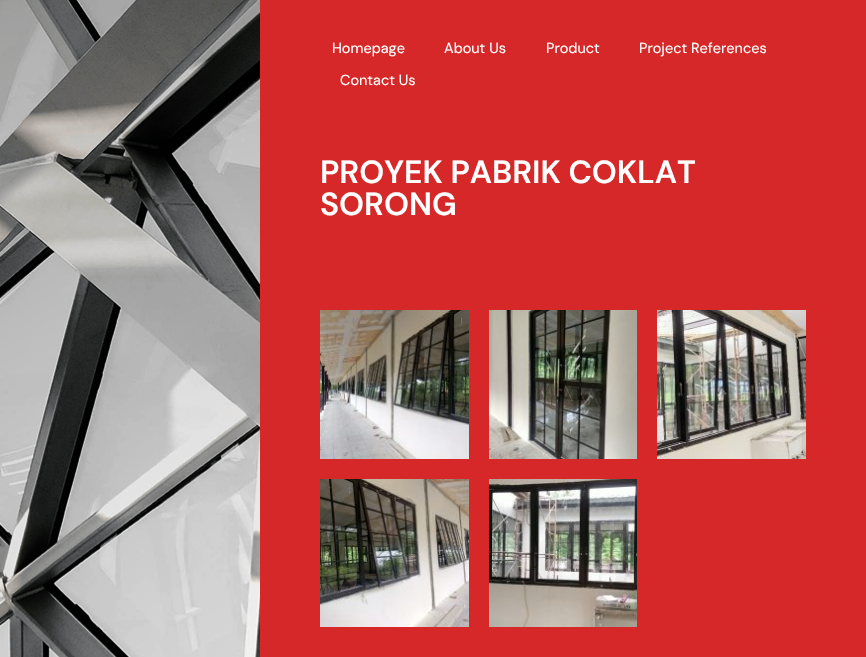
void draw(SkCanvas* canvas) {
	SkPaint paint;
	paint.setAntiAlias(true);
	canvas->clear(0xffffffff);
	canvas->drawImageRect(SkImages::DeferredFromEncodedData(SkData::MakeFromFileName("img1.png")), SkRect::MakeXYWH(0, 0, 260, 657), SkSamplingOptions());
	paint.setColor(0xffd62828);
	canvas->drawRect(SkRect::MakeXYWH(260, 0, 606, 657), paint);
	SkFont f1(fontMgr->matchFamilyStyle("DM Sans", SkFontStyle::Normal()), 14.5);
	f1.setSubpixel(true);
	paint.setColor(0xffffffff);
	canvas->drawString("Homepage", 332, 53, f1, paint);
	canvas->drawString("About Us", 444, 53, f1, paint);
	canvas->drawString("Product", 546, 53, f1, paint);
	canvas->drawString("Project References", 639, 53, f1, paint);
	canvas->drawString("Contact Us", 340, 85, f1, paint);
	SkFont f2(fontMgr->matchFamilyStyle("DM Sans", SkFontStyle(600, SkFontStyle::kNormal_Width, SkFontStyle::kUpright_Slant)), 32);
	f2.setSubpixel(true);
	canvas->drawString("PROYEK PABRIK COKLAT", 320, 183, f2, paint);
	canvas->drawString("SORONG", 320, 215, f2, paint);
	canvas->drawImageRect(SkImages::DeferredFromEncodedData(SkData::MakeFromFileName("img2.png")), SkRect::MakeXYWH(320, 310, 149, 149), SkSamplingOptions());
	canvas->drawImageRect(SkImages::DeferredFromEncodedData(SkData::MakeFromFileName("img3.png")), SkRect::MakeXYWH(489, 310, 148, 149), SkSamplingOptions());
	canvas->drawImageRect(SkImages::DeferredFromEncodedData(SkData::MakeFromFileName("img4.png")), SkRect::MakeXYWH(657, 310, 149, 149), SkSamplingOptions());
	canvas->drawImageRect(SkImages::DeferredFromEncodedData(SkData::MakeFromFileName("img5.png")), SkRect::MakeXYWH(320, 479, 149, 148), SkSamplingOptions());
	canvas->drawImageRect(SkImages::DeferredFromEncodedData(SkData::MakeFromFileName("img6.png")), SkRect::MakeXYWH(489, 479, 148, 148), SkSamplingOptions());
}
